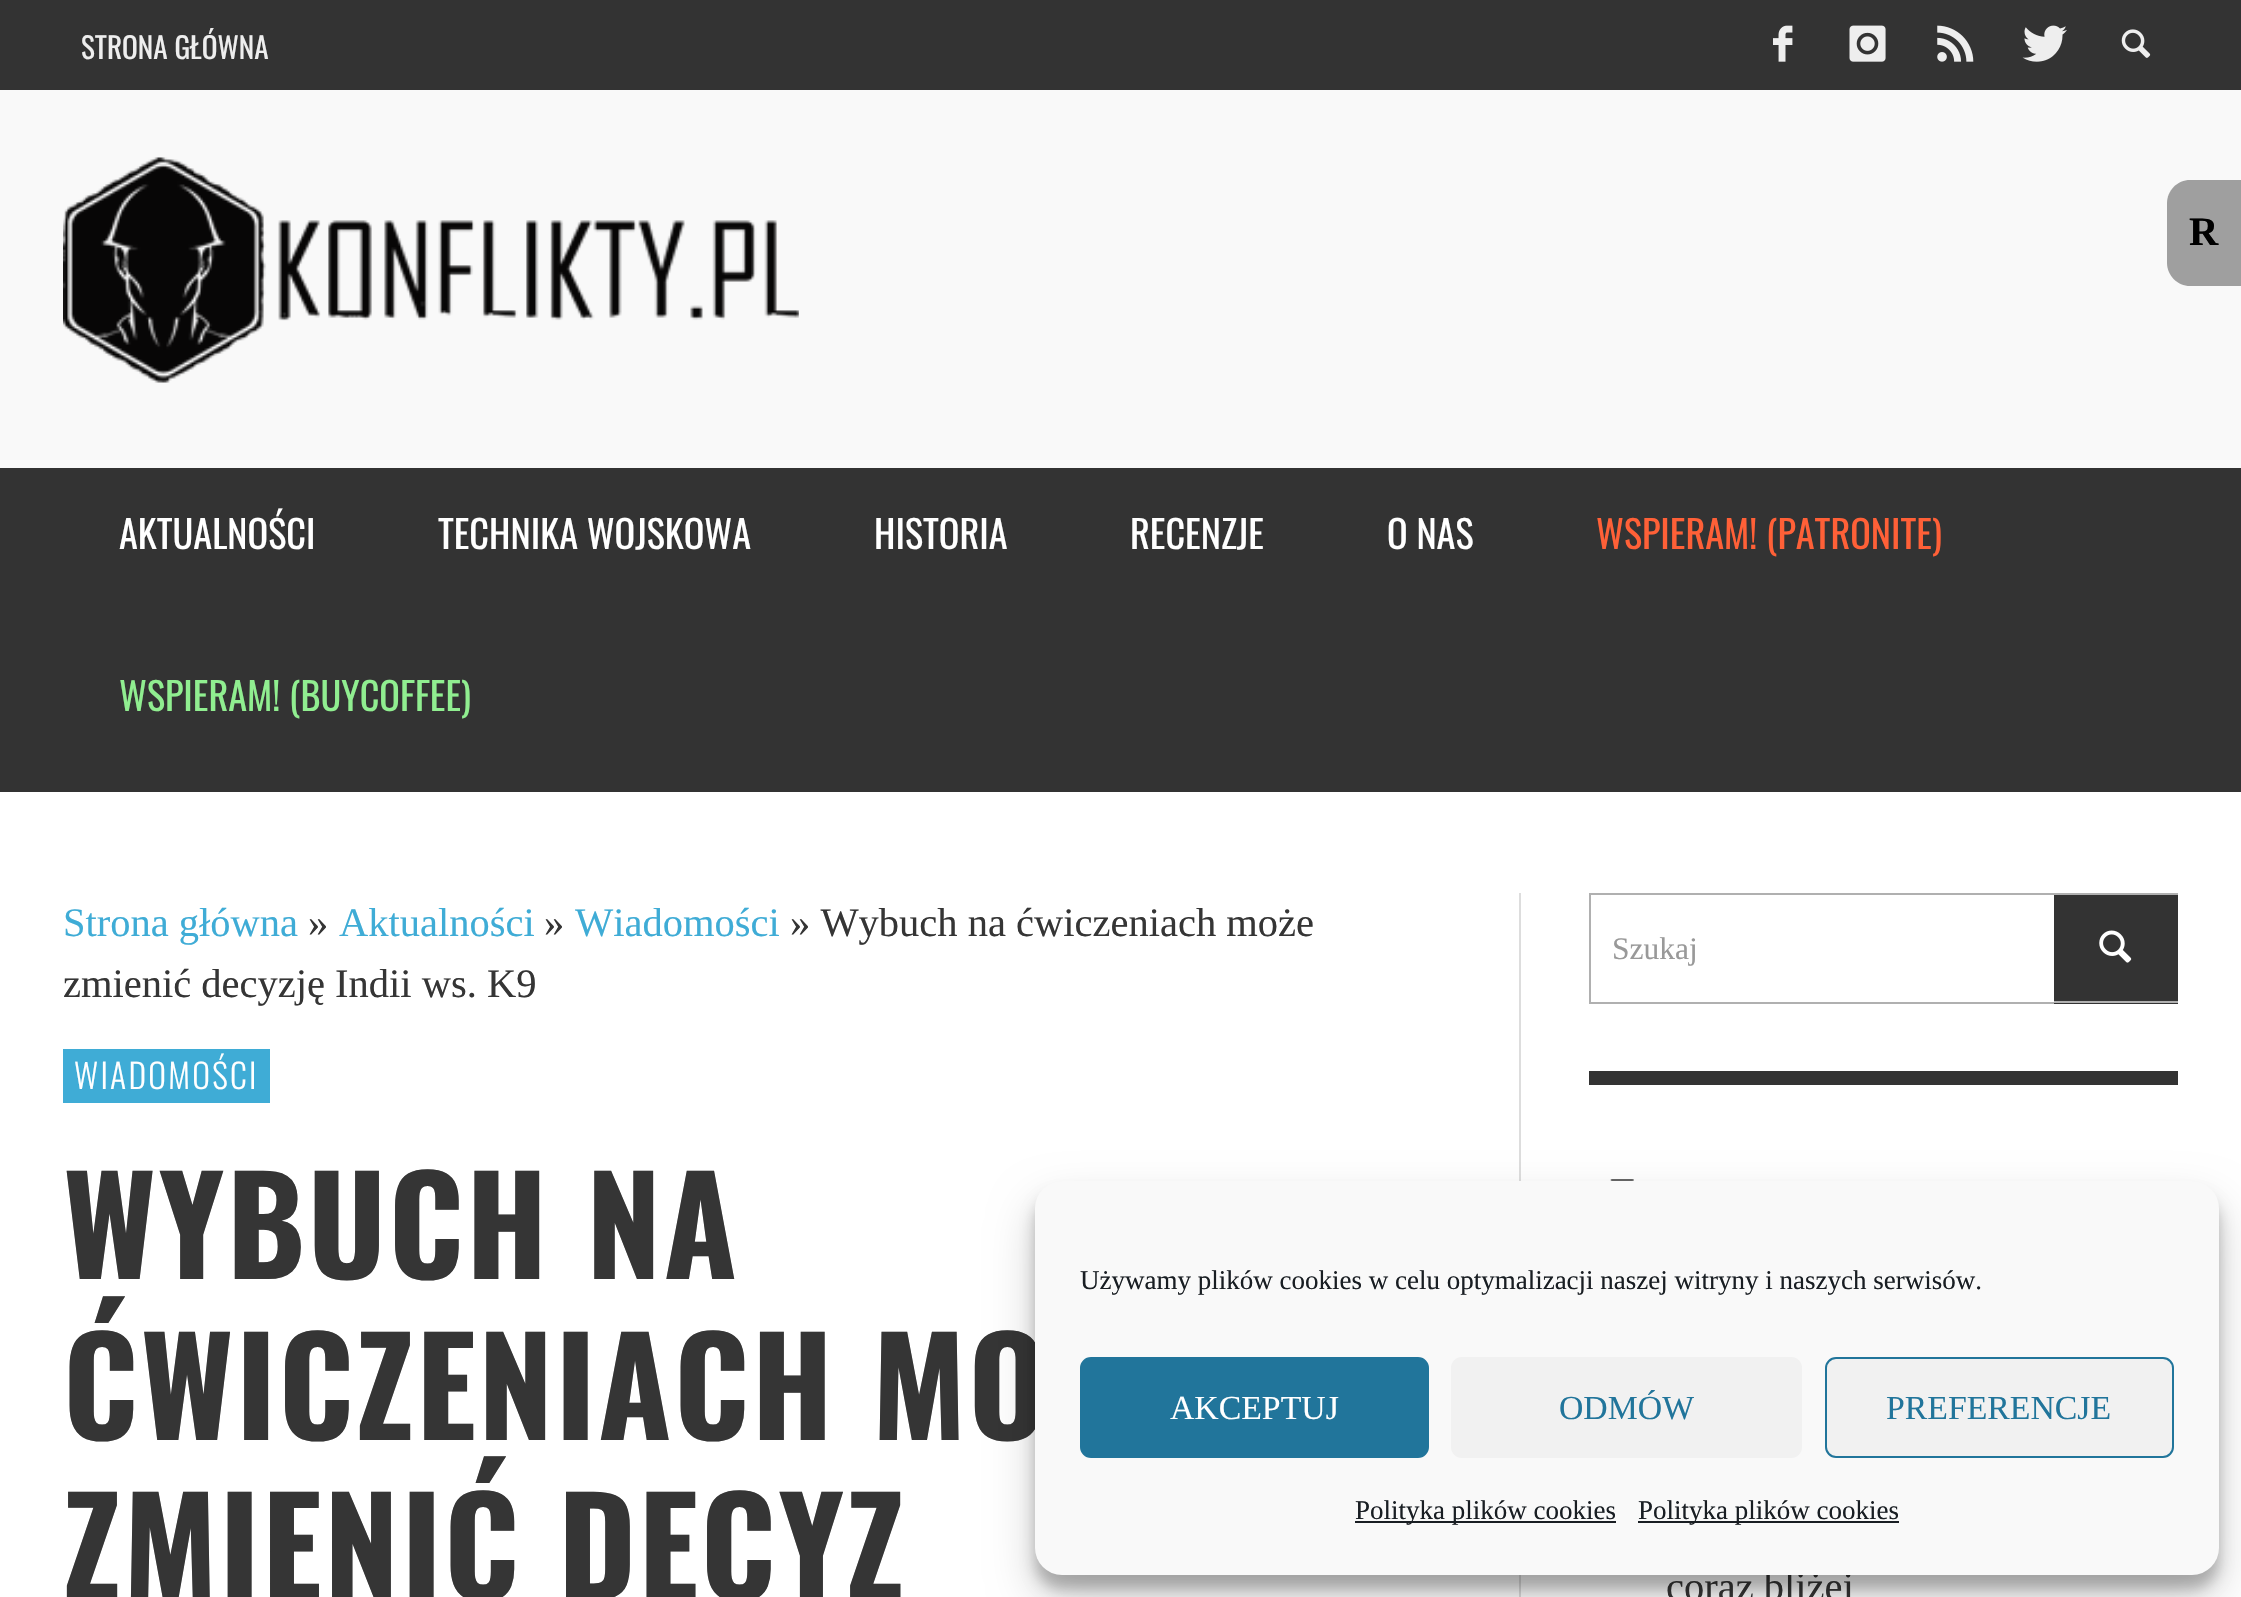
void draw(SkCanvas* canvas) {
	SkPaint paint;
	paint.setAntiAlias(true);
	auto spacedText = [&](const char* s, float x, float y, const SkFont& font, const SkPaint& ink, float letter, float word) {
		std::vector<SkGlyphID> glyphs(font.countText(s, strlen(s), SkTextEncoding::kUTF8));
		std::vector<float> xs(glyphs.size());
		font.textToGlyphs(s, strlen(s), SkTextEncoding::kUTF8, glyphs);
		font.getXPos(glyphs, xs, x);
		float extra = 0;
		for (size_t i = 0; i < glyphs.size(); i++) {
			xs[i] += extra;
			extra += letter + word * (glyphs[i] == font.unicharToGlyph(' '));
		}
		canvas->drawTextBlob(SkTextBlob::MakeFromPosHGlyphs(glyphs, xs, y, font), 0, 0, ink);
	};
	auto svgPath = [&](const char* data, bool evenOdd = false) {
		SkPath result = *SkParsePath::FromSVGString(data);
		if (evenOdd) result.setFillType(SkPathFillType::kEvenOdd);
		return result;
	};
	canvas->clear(0xffffffff);
	paint.setColor(0xff333333);
	canvas->drawRect(SkRect::MakeXYWH(0, 0, 2241, 90), paint);
	SkFont f1(fontMgr->matchFamilyStyle("Oswald", SkFontStyle::Normal()), 29.25);
	f1.setSubpixel(true);
	paint.setColor(0xffeeeeee);
	canvas->drawString("STRONA GŁÓWNA", 81, 59, f1, paint);
	canvas->drawImageRect(SkImages::DeferredFromEncodedData(SkData::MakeFromFileName("img1.png")), SkRect::MakeXYWH(1773, 25, 20, 37), SkSamplingOptions());
	canvas->drawImageRect(SkImages::DeferredFromEncodedData(SkData::MakeFromFileName("img2.png")), SkRect::MakeXYWH(1849, 25, 37, 37), SkSamplingOptions());
	canvas->drawImageRect(SkImages::DeferredFromEncodedData(SkData::MakeFromFileName("img3.png")), SkRect::MakeXYWH(1937, 25, 37, 37), SkSamplingOptions());
	canvas->drawImageRect(SkImages::DeferredFromEncodedData(SkData::MakeFromFileName("img4.png")), SkRect::MakeXYWH(2022, 25, 45, 37), SkSamplingOptions());
	canvas->drawImageRect(SkImages::DeferredFromEncodedData(SkData::MakeFromFileName("img5.png")), SkRect::MakeXYWH(2121, 29, 30, 29), SkSamplingOptions());
	paint.setColor(0xfff9f9f9);
	canvas->drawRect(SkRect::MakeXYWH(0, 90, 2241, 378), paint);
	canvas->drawImageRect(SkImages::DeferredFromEncodedData(SkData::MakeFromFileName("img6.png")), SkRect::MakeXYWH(63, 157, 736, 226), SkSamplingOptions());
	paint.setColor(0xff333333);
	canvas->drawRect(SkRect::MakeXYWH(0, 468, 2241, 324), paint);
	SkFont f2(fontMgr->matchFamilyStyle("Oswald", SkFontStyle::Normal()), 38.25);
	f2.setSubpixel(true);
	paint.setColor(0xffffffff);
	canvas->drawString("AKTUALNOŚCI", 119, 549, f2, paint);
	canvas->drawString("TECHNIKA WOJSKOWA", 438, 549, f2, paint);
	canvas->drawString("HISTORIA", 874, 549, f2, paint);
	canvas->drawString("RECENZJE", 1130, 549, f2, paint);
	canvas->drawString("O NAS", 1387, 549, f2, paint);
	paint.setColor(0xffff6037);
	canvas->drawString("WSPIERAM! (PATRONITE)", 1596, 549, f2, paint);
	paint.setColor(0xff90ee90);
	canvas->drawString("WSPIERAM! (BUYCOFFEE)", 119, 711, f2, paint);
	SkFont f3(fontMgr->matchFamilyStyle("Liberation Serif", SkFontStyle::Normal()), 40.5);
	f3.setSubpixel(true);
	paint.setColor(0xff3facd6);
	canvas->drawString("Strona główna", 63, 936, f3, paint);
	paint.setColor(0xff353535);
	canvas->drawString("»", 308, 936, f3, paint);
	paint.setColor(0xff3facd6);
	canvas->drawString("Aktualności", 339, 936, f3, paint);
	paint.setColor(0xff353535);
	canvas->drawString("»", 544, 936, f3, paint);
	paint.setColor(0xff3facd6);
	canvas->drawString("Wiadomości", 575, 936, f3, paint);
	paint.setColor(0xff353535);
	canvas->drawString("» Wybuch na ćwiczeniach może", 790, 936, f3, paint);
	canvas->drawString("zmienić decyzję Indii ws. K9", 63, 997, f3, paint);
	paint.setColor(0xff3facd6);
	canvas->drawRect(SkRect::MakeXYWH(63, 1049, 207, 54), paint);
	SkFont f4(fontMgr->matchFamilyStyle("Oswald", SkFontStyle(300, SkFontStyle::kNormal_Width, SkFontStyle::kUpright_Slant)), 33.75);
	f4.setSubpixel(true);
	paint.setColor(0xffffffff);
	spacedText("WIADOMOŚCI", 74, 1089, f4, paint, 2.25, 0);
	SkFont f5(fontMgr->matchFamilyStyle("Oswald", SkFontStyle::Bold()), 133.75);
	f5.setSubpixel(true);
	paint.setColor(0xff353535);
	spacedText("WYBUCH NA", 63, 1279, f5, paint, 2.25, 0);
	spacedText("ĆWICZENIACH MO", 63, 1440, f5, paint, 2.25, 0);
	spacedText("ZMIENIĆ DECYZ", 63, 1600, f5, paint, 2.25, 0);
	paint.setColor(0xffdddddd);
	canvas->drawRect(SkRect::MakeXYWH(1519, 893, 2, 704), paint);
	paint.setStroke(true);
	paint.setStrokeWidth(2);
	paint.setColor(0xffb0b0b0);
	canvas->drawRect(SkRect::MakeXYWH(1590, 894, 587, 109), paint);
	SkFont f6(fontMgr->matchFamilyStyle("Liberation Serif", SkFontStyle::Normal()), 31.5);
	f6.setSubpixel(true);
	paint.setStroke(false);
	paint.setColor(0xff999999);
	canvas->drawString("Szukaj", 1612, 959, f6, paint);
	paint.setColor(0xff333333);
	canvas->drawRect(SkRect::MakeXYWH(2054, 895, 124, 109), paint);
	paint.setColor(0xffb0b0b0);
	canvas->drawRect(SkRect::MakeXYWH(2054, 1001, 124, 2), paint);
	canvas->drawImageRect(SkImages::DeferredFromEncodedData(SkData::MakeFromFileName("img7.png")), SkRect::MakeXYWH(2099, 930, 33, 33), SkSamplingOptions());
	paint.setColor(0xff333333);
	canvas->drawRect(SkRect::MakeXYWH(1589, 1071, 589, 14), paint);
	canvas->drawImageRect(SkImages::DeferredFromEncodedData(SkData::MakeFromFileName("img8.png")), SkRect::MakeXYWH(1610, 1179, 24, 2), SkSamplingOptions());
	paint.setColor(0xff353535);
	canvas->drawString("coraz bliżej", 1666, 1600, f3, paint);
	paint.setColor(0xff9f9f9f);
	canvas->drawPath(svgPath("M2190 180H2241V286H2190C2177.5 286 2167 275.5 2167 263V203C2167 190.5 2177.5 180 2190 180Z"), paint);
	SkFont f7(fontMgr->matchFamilyStyle("Liberation Serif", SkFontStyle::Bold()), 40.5);
	f7.setSubpixel(true);
	paint.setColor(0xff000000);
	canvas->drawString("R", 2189, 245, f7, paint);
	paint.setColor(0x3b000000);
	paint.setMaskFilter(SkMaskFilter::MakeBlur(kNormal_SkBlurStyle, 7));
	canvas->drawRoundRect(SkRect::MakeXYWH(1035, 1195, 1184, 394), 27, 27, paint);
	paint.setMaskFilter(nullptr);
	paint.setColor(0x30000000);
	paint.setMaskFilter(SkMaskFilter::MakeBlur(kNormal_SkBlurStyle, 22.5));
	canvas->drawRoundRect(SkRect::MakeXYWH(1035, 1204, 1184, 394), 27, 27, paint);
	paint.setMaskFilter(nullptr);
	paint.setColor(0xfff9f9f9);
	canvas->drawRoundRect(SkRect::MakeXYWH(1035, 1181, 1184, 394), 27, 27, paint);
	SkFont f8(fontMgr->matchFamilyStyle("Liberation Serif", SkFontStyle::Normal()), 27);
	f8.setSubpixel(true);
	paint.setColor(0xff191e23);
	canvas->drawString("Używamy plików cookies w celu optymalizacji naszej witryny i naszych serwisów.", 1080, 1289, f8, paint);
	paint.setColor(0xff21759b);
	canvas->drawRoundRect(SkRect::MakeXYWH(1081, 1358, 347, 99), 10, 10, paint);
	paint.setStroke(true);
	canvas->drawRoundRect(SkRect::MakeXYWH(1081, 1358, 347, 99), 10, 10, paint);
	SkFont f9(fontMgr->matchFamilyStyle("Liberation Serif", SkFontStyle::Normal()), 33.75);
	f9.setSubpixel(true);
	paint.setStroke(false);
	paint.setColor(0xffffffff);
	canvas->drawString("AKCEPTUJ", 1170, 1419, f9, paint);
	paint.setColor(0xfff1f1f1);
	canvas->drawRoundRect(SkRect::MakeXYWH(1451, 1357, 351, 101), 11, 11, paint);
	paint.setColor(0xff21759b);
	canvas->drawString("ODMÓW", 1559, 1419, f9, paint);
	paint.setColor(0xfff1f1f1);
	canvas->drawRoundRect(SkRect::MakeXYWH(1826, 1358, 347, 99), 10, 10, paint);
	paint.setStroke(true);
	paint.setColor(0xff21759b);
	canvas->drawRoundRect(SkRect::MakeXYWH(1826, 1358, 347, 99), 10, 10, paint);
	paint.setStroke(false);
	canvas->drawString("PREFERENCJE", 1886, 1419, f9, paint);
	paint.setColor(0xff191e23);
	canvas->drawRect(SkRect::MakeXYWH(1355, 1521, 261, 2), paint);
	canvas->drawString("Polityka plików cookies", 1355, 1519, f8, paint);
	canvas->drawRect(SkRect::MakeXYWH(1638, 1521, 261, 2), paint);
	canvas->drawString("Polityka plików cookies", 1638, 1519, f8, paint);
}
